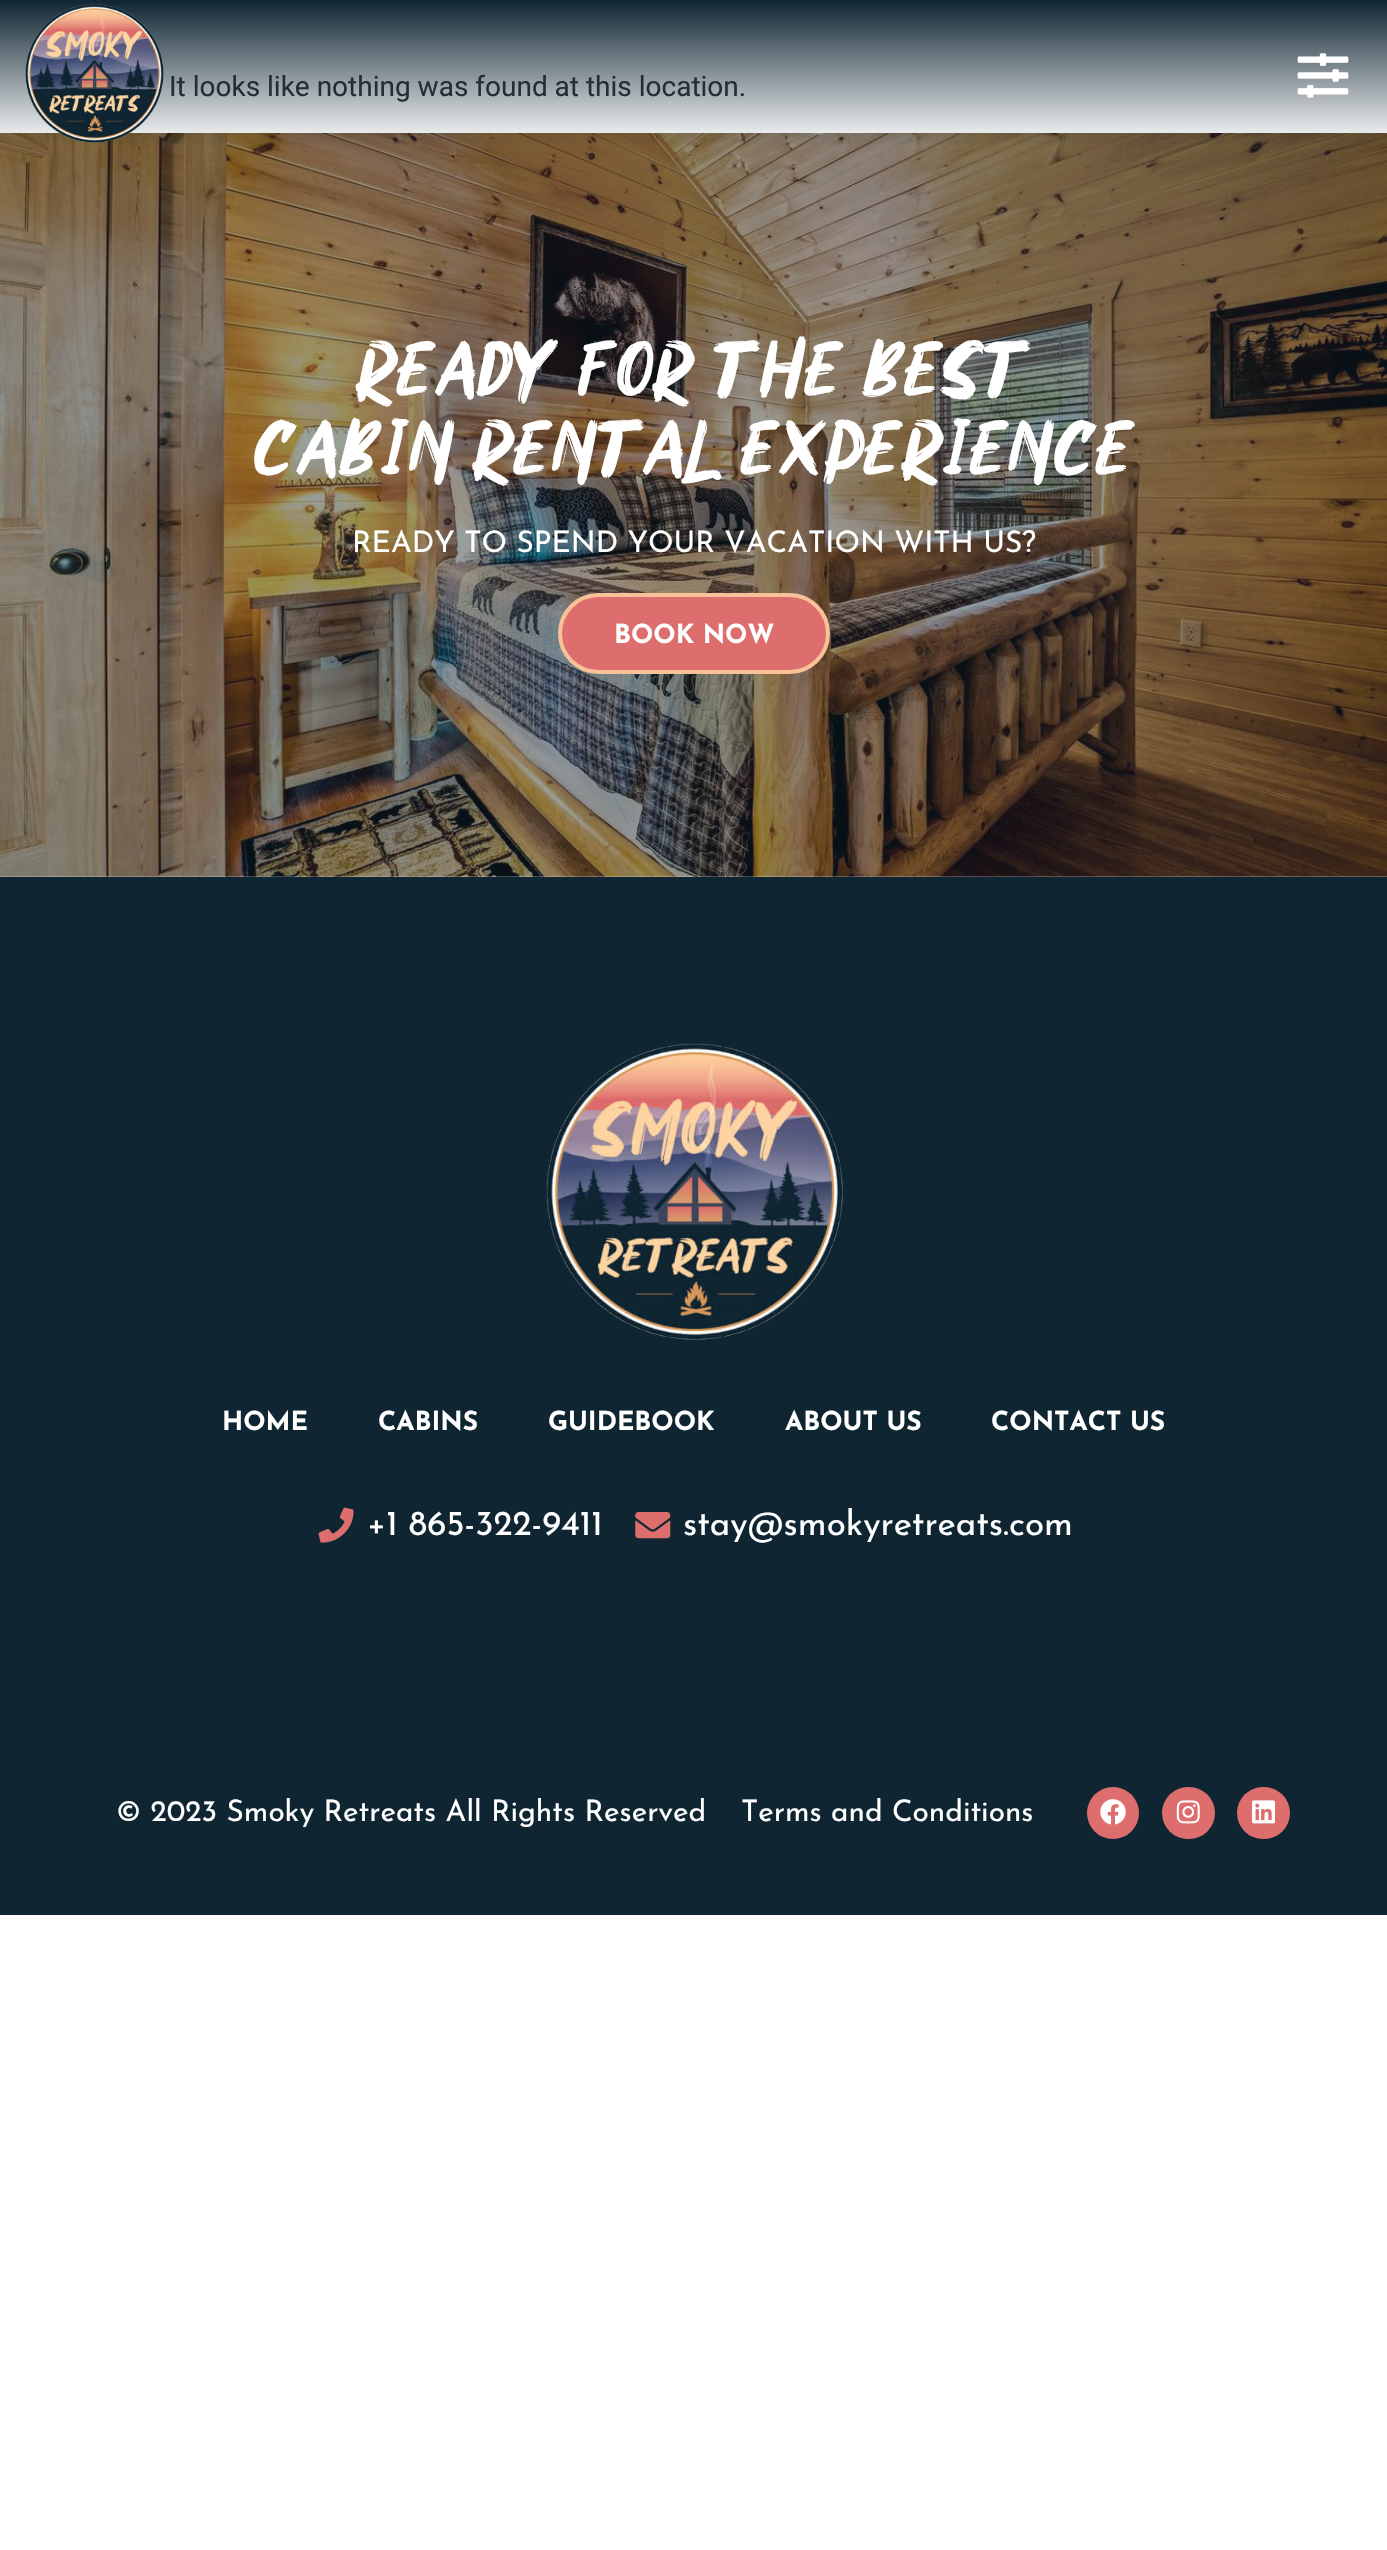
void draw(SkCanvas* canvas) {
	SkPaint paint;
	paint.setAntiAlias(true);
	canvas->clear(0xffffffff);
	SkFont f1(fontMgr->matchFamilyStyle("Roboto", SkFontStyle::Normal()), 28);
	f1.setSubpixel(true);
	paint.setColor(0xff333333);
	canvas->drawString("It looks like nothing was found at this location.", 169, 96, f1, paint);
	canvas->drawImageRect(SkImages::DeferredFromEncodedData(SkData::MakeFromFileName("img3.png")), SkRect::MakeXYWH(0, 133, 1387, 744), SkSamplingOptions());
	{
		const SkColor colors[] = {0xff0f2532, 0x000f2532};
		const float stops[] = {0, 1};
		const SkPoint ends[] = {{694, 0}, {694, 147}};
		paint.setShader(SkGradientShader::MakeLinear(ends, colors, stops, 2, SkTileMode::kClamp));
		paint.setAlpha(255);
	}
	canvas->drawRect(SkRect::MakeXYWH(0, 0, 1387, 144), paint);
	canvas->drawImageRect(SkImages::DeferredFromEncodedData(SkData::MakeFromFileName("img1.png")), SkRect::MakeXYWH(25, 4, 139, 139), SkSamplingOptions());
	canvas->drawImageRect(SkImages::DeferredFromEncodedData(SkData::MakeFromFileName("img2.png")), SkRect::MakeXYWH(1297, 53, 52, 45), SkSamplingOptions());
	SkFont f2(fontMgr->matchFamilyStyle("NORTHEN", SkFontStyle::Normal()), 78.75);
	f2.setSubpixel(true);
	paint.setShader(nullptr);
	paint.setColor(0xffffffff);
	canvas->drawString("Ready for the best", 357, 396, f2, paint);
	canvas->drawString("Cabin Rental Experience", 254, 475, f2, paint);
	SkFont f3(fontMgr->matchFamilyStyle("Josefin Sans", SkFontStyle::Normal()), 29.75);
	f3.setSubpixel(true);
	canvas->drawString("READY TO SPEND YOUR VACATION WITH US?", 352, 552, f3, paint);
	paint.setColor(0xffde6e6d);
	canvas->drawRoundRect(SkRect::MakeXYWH(560, 595, 268, 77), 38.5, 38.5, paint);
	paint.setStroke(true);
	paint.setStrokeWidth(4);
	paint.setColor(0xfff8c198);
	canvas->drawRoundRect(SkRect::MakeXYWH(560, 595, 268, 77), 38.5, 38.5, paint);
	SkFont f4(fontMgr->matchFamilyStyle("Josefin Sans", SkFontStyle::Bold()), 26.25);
	f4.setSubpixel(true);
	paint.setStroke(false);
	paint.setColor(0xffffffff);
	canvas->drawString("BOOK NOW", 614, 643, f4, paint);
	paint.setColor(0xff0f2532);
	canvas->drawRect(SkRect::MakeXYWH(0, 877, 1387, 1038), paint);
	canvas->drawImageRect(SkImages::DeferredFromEncodedData(SkData::MakeFromFileName("img4.png")), SkRect::MakeXYWH(546, 1043, 297, 297), SkSamplingOptions());
	paint.setColor(0xffffffff);
	canvas->drawString("HOME", 222, 1430, f4, paint);
	canvas->drawString("CABINS", 378, 1430, f4, paint);
	canvas->drawString("GUIDEBOOK", 548, 1430, f4, paint);
	canvas->drawString("ABOUT US", 785, 1430, f4, paint);
	canvas->drawString("CONTACT US", 991, 1430, f4, paint);
	canvas->drawImageRect(SkImages::DeferredFromEncodedData(SkData::MakeFromFileName("img5.png")), SkRect::MakeXYWH(318, 1507, 36, 36), SkSamplingOptions());
	SkFont f5(fontMgr->matchFamilyStyle("Josefin Sans", SkFontStyle::Normal()), 35);
	f5.setSubpixel(true);
	canvas->drawString("+1 865-322-9411", 367, 1535, f5, paint);
	canvas->drawImageRect(SkImages::DeferredFromEncodedData(SkData::MakeFromFileName("img6.png")), SkRect::MakeXYWH(635, 1512, 36, 27), SkSamplingOptions());
	canvas->drawString("stay@smokyretreats.com", 683, 1535, f5, paint);
	canvas->drawString("© 2023 Smoky Retreats All Rights Reserved", 116, 1821, f3, paint);
	canvas->drawString("Terms and Conditions", 741, 1821, f3, paint);
	paint.setColor(0xffde6e6d);
	canvas->drawCircle(1113, 1813, 26, paint);
	canvas->drawImageRect(SkImages::DeferredFromEncodedData(SkData::MakeFromFileName("img7.png")), SkRect::MakeXYWH(1100, 1799, 26, 26), SkSamplingOptions());
	canvas->drawRoundRect(SkRect::MakeXYWH(1162, 1787, 53, 52), 26, 26, paint);
	canvas->drawImageRect(SkImages::DeferredFromEncodedData(SkData::MakeFromFileName("img8.png")), SkRect::MakeXYWH(1176, 1800, 24, 24), SkSamplingOptions());
	canvas->drawRoundRect(SkRect::MakeXYWH(1237, 1787, 53, 52), 26, 26, paint);
	canvas->drawImageRect(SkImages::DeferredFromEncodedData(SkData::MakeFromFileName("img9.png")), SkRect::MakeXYWH(1252, 1800, 23, 24), SkSamplingOptions());
}
